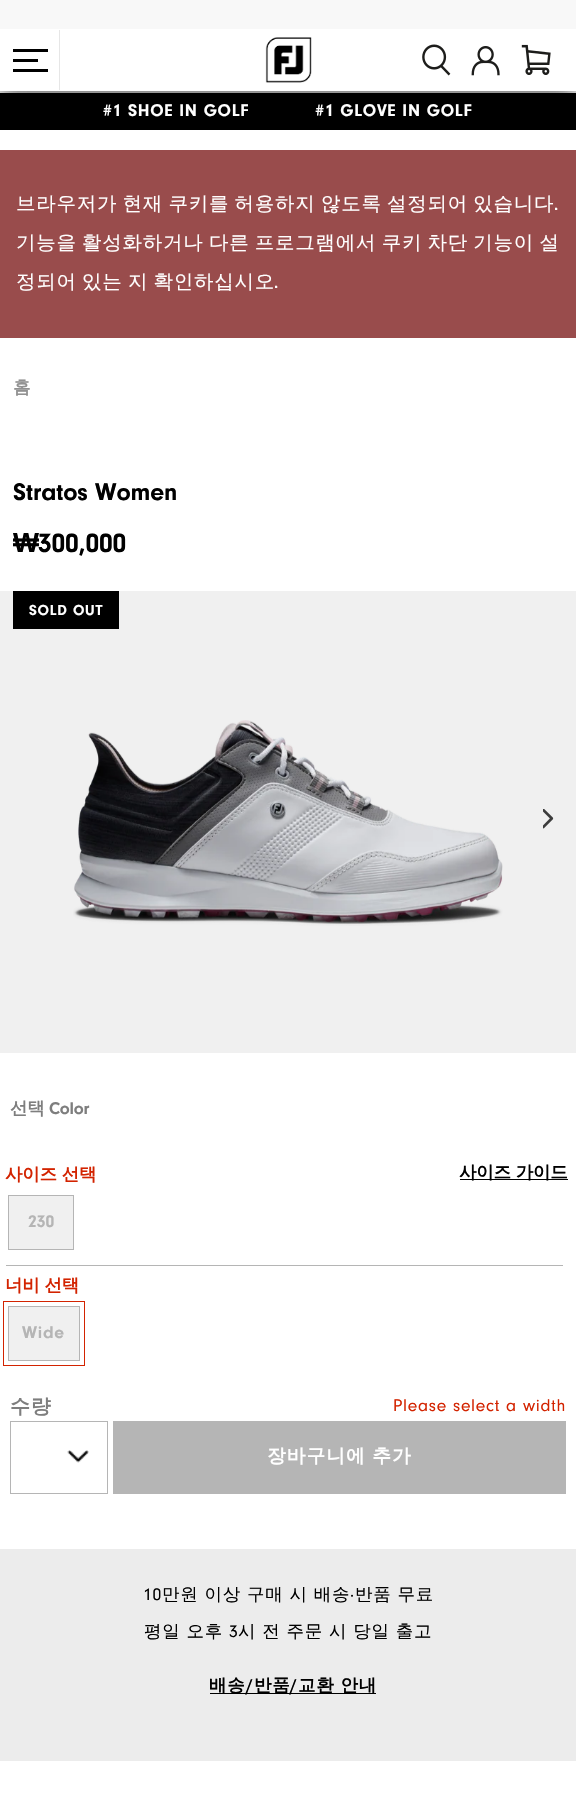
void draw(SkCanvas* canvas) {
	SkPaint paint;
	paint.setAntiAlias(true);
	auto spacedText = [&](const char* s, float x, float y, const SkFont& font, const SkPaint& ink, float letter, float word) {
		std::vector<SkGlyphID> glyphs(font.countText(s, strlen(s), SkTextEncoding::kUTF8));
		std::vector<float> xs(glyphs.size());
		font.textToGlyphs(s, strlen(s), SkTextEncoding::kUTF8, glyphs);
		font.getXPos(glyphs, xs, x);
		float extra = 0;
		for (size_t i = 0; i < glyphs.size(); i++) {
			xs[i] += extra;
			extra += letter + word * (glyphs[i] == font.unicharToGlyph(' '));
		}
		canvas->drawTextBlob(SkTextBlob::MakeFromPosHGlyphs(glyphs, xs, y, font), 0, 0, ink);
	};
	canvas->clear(0xffffffff);
	paint.setColor(0xff000000);
	canvas->drawRect(SkRect::MakeXYWH(0, 93, 576, 37), paint);
	canvas->save();
	canvas->clipRect(SkRect::MakeXYWH(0, 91, 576, 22));
	paint.setColor(0x80000000);
	paint.setMaskFilter(SkMaskFilter::MakeBlur(kNormal_SkBlurStyle, 12.5));
	canvas->drawRect(SkRect::MakeXYWH(0, 29, 576, 62), paint);
	paint.setMaskFilter(nullptr);
	paint.setMaskFilter(SkMaskFilter::MakeBlur(kNormal_SkBlurStyle, 12.5));
	canvas->drawRect(SkRect::MakeXYWH(0, 29, 576, 62), paint);
	paint.setMaskFilter(nullptr);
	canvas->restore();
	paint.setColor(0xffe6e6e6);
	canvas->drawRect(SkRect::MakeXYWH(59, 30, 1, 60), paint);
	paint.setColor(0xff000000);
	canvas->drawRect(SkRect::MakeXYWH(13, 49, 35, 3), paint);
	canvas->drawRect(SkRect::MakeXYWH(13, 59, 25, 3), paint);
	canvas->drawRect(SkRect::MakeXYWH(13, 69, 35, 3), paint);
	canvas->drawImageRect(SkImages::DeferredFromEncodedData(SkData::MakeFromFileName("img1.png")), SkRect::MakeXYWH(265, 37, 47, 46), SkSamplingOptions());
	canvas->drawImageRect(SkImages::DeferredFromEncodedData(SkData::MakeFromFileName("img2.png")), SkRect::MakeXYWH(422, 44, 29, 32), SkSamplingOptions());
	canvas->drawImageRect(SkImages::DeferredFromEncodedData(SkData::MakeFromFileName("img3.png")), SkRect::MakeXYWH(471, 46, 29, 30), SkSamplingOptions());
	canvas->drawImageRect(SkImages::DeferredFromEncodedData(SkData::MakeFromFileName("img4.png")), SkRect::MakeXYWH(521, 44, 30, 31), SkSamplingOptions());
	paint.setColor(0xfff8f8f8);
	canvas->drawRect(SkRect::MakeXYWH(0, 0, 576, 29), paint);
	SkFont f1(fontMgr->matchFamilyStyle("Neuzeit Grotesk", SkFontStyle::Bold()), 17.5);
	f1.setSubpixel(true);
	paint.setColor(0xffffffff);
	spacedText("#1 SHOE IN GOLF           #1 GLOVE IN GOLF", 103, 116, f1, paint, 0.75, 0);
	paint.setColor(0xff994c4c);
	canvas->drawRect(SkRect::MakeXYWH(0, 150, 576, 188), paint);
	SkFont f2(fontMgr->matchFamilyStyle("WenQuanYi Zen Hei", SkFontStyle(500, SkFontStyle::kNormal_Width, SkFontStyle::kUpright_Slant)), 19.5);
	f2.setSubpixel(true);
	paint.setColor(0xffffffff);
	spacedText("브라우저가 현재 쿠키를 허용하지 않도록 설정되어 있습니다", 16, 210, f2, paint, 0.75, -1.25);
	SkFont f3(fontMgr->matchFamilyStyle("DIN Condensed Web", SkFontStyle::Normal()), 19.5);
	f3.setSubpixel(true);
	spacedText(".", 554, 210, f3, paint, 0.75, 0);
	spacedText("기능을 활성화하거나 다른 프로그램에서 쿠키 차단 기능이 설", 16, 249, f2, paint, 0.75, -1.25);
	spacedText("정되어 있는 지 확인하십시오", 16, 288, f2, paint, 0.75, -1.25);
	spacedText(".", 274, 288, f3, paint, 0.75, 0);
	SkFont f4(fontMgr->matchFamilyStyle("WenQuanYi Zen Hei", SkFontStyle::Bold()), 17.5);
	f4.setSubpixel(true);
	paint.setColor(0xff919191);
	canvas->drawString("홈", 13, 393, f4, paint);
	SkFont f5(fontMgr->matchFamilyStyle("Neuzeit Grotesk", SkFontStyle::Bold()), 25);
	f5.setSubpixel(true);
	paint.setColor(0xff000000);
	spacedText("Stratos Women", 13, 500, f5, paint, -0.1, 0);
	SkFont f6(fontMgr->matchFamilyStyle("Liberation Sans", SkFontStyle::Bold()), 27.5);
	f6.setSubpixel(true);
	spacedText("₩", 13, 552, f6, paint, -0.25, 0);
	SkFont f7(fontMgr->matchFamilyStyle("Neuzeit Grotesk", SkFontStyle::Bold()), 27.5);
	f7.setSubpixel(true);
	spacedText("300,000", 38, 552, f7, paint, -0.25, 0);
	paint.setColor(0xfff0f0f0);
	canvas->drawRect(SkRect::MakeXYWH(0, 591, 576, 462), paint);
	canvas->drawImageRect(SkImages::DeferredFromEncodedData(SkData::MakeFromFileName("img5.png")), SkRect::MakeXYWH(73, 720, 430, 206), SkSamplingOptions());
	canvas->drawImageRect(SkImages::DeferredFromEncodedData(SkData::MakeFromFileName("img6.png")), SkRect::MakeXYWH(543, 809, 11, 20), SkSamplingOptions());
	paint.setColor(0xff000000);
	canvas->drawRect(SkRect::MakeXYWH(13, 591, 106, 38), paint);
	SkFont f8(fontMgr->matchFamilyStyle("Neuzeit Grotesk", SkFontStyle::Bold()), 15);
	f8.setSubpixel(true);
	paint.setColor(0xffffffff);
	spacedText("SOLD OUT", 29, 615, f8, paint, 0.75, 0);
	paint.setColor(0xff7e7e7e);
	spacedText("선택", 10, 1114, f4, paint, -0.25, 0);
	spacedText("Color", 49, 1114, f1, paint, -0.25, 0);
	paint.setColor(0xff000000);
	canvas->drawRect(SkRect::MakeXYWH(460, 1179, 108, 1), paint);
	spacedText("사이즈 가이드", 459, 1178, f4, paint, -0.25, 0);
	paint.setColor(0xfff0f0f0);
	canvas->drawRect(SkRect::MakeXYWH(8.5, 1195.5, 65, 54), paint);
	paint.setStroke(true);
	paint.setStrokeWidth(1);
	paint.setColor(0xffb5b5b5);
	canvas->drawRect(SkRect::MakeXYWH(8.5, 1195.5, 65, 54), paint);
	paint.setStroke(false);
	canvas->drawString("230", 28, 1227, f1, paint);
	paint.setColor(0xffd32300);
	spacedText("사이즈 선택", 5, 1180, f4, paint, -0.25, 0);
	paint.setColor(0xffb5b5b5);
	canvas->drawRect(SkRect::MakeXYWH(6, 1265, 557, 1), paint);
	paint.setColor(0xffd32300);
	spacedText("너비 선택", 5, 1291, f4, paint, -0.25, 0);
	paint.setStroke(true);
	canvas->drawRect(SkRect::MakeXYWH(3.5, 1301.5, 81, 64), paint);
	paint.setStroke(false);
	paint.setColor(0xfff0f0f0);
	canvas->drawRect(SkRect::MakeXYWH(8.5, 1306.5, 71, 54), paint);
	paint.setStroke(true);
	paint.setColor(0xffb5b5b5);
	canvas->drawRect(SkRect::MakeXYWH(8.5, 1306.5, 71, 54), paint);
	paint.setStroke(false);
	spacedText("Wide", 22, 1338, f1, paint, 0.75, 0);
	SkFont f9(fontMgr->matchFamilyStyle("WenQuanYi Zen Hei", SkFontStyle::Bold()), 20);
	f9.setSubpixel(true);
	paint.setColor(0xff7e7e7e);
	spacedText("수량", 10, 1413, f9, paint, 0.75, 0);
	canvas->drawImageRect(SkImages::DeferredFromEncodedData(SkData::MakeFromFileName("img7.png")), SkRect::MakeXYWH(67, 1450, 22, 13), SkSamplingOptions());
	paint.setStroke(true);
	paint.setColor(0xffb5b5b5);
	canvas->drawRect(SkRect::MakeXYWH(10.5, 1421.5, 97, 72), paint);
	SkFont f10(fontMgr->matchFamilyStyle("Neuzeit Grotesk", SkFontStyle::Normal()), 17.5);
	f10.setSubpixel(true);
	paint.setStroke(false);
	paint.setColor(0xffd32300);
	spacedText("Please select a width", 393, 1411, f10, paint, 0.75, 0);
	paint.setColor(0xffb5b5b5);
	canvas->drawRect(SkRect::MakeXYWH(113, 1421, 453, 73), paint);
	SkFont f11(fontMgr->matchFamilyStyle("WenQuanYi Zen Hei", SkFontStyle::Bold()), 18.75);
	f11.setSubpixel(true);
	paint.setColor(0xffffffff);
	spacedText("장바구니에 추가", 267, 1462, f11, paint, 1, 0);
	paint.setColor(0xffececec);
	canvas->drawRect(SkRect::MakeXYWH(0, 1549, 576, 212), paint);
	paint.setColor(0xff000000);
	spacedText("10", 143, 1600, f10, paint, 0.75, 0);
	SkFont f12(fontMgr->matchFamilyStyle("WenQuanYi Zen Hei", SkFontStyle(500, SkFontStyle::kNormal_Width, SkFontStyle::kUpright_Slant)), 17.5);
	f12.setSubpixel(true);
	spacedText("만원 이상 구매 시 배송", 162, 1600, f12, paint, 0.75, 0);
	spacedText("·", 350, 1600, f10, paint, 0.75, 0);
	spacedText("반품 무료", 355, 1600, f12, paint, 0.75, 0);
	spacedText("평일 오후", 144, 1637, f12, paint, 0.75, 0);
	spacedText("3", 229, 1637, f10, paint, 0.75, 0);
	spacedText("시 전 주문 시 당일 출고", 238, 1637, f12, paint, 0.75, 0);
	canvas->drawRect(SkRect::MakeXYWH(210, 1693, 166, 1), paint);
	spacedText("배송", 209, 1691, f4, paint, 0.75, 0);
	spacedText("/", 246, 1691, f1, paint, 0.75, 0);
	spacedText("반품", 254, 1691, f4, paint, 0.75, 0);
	spacedText("/", 290, 1691, f1, paint, 0.75, 0);
	spacedText("교환 안내", 298, 1691, f4, paint, 0.75, 0);
}
